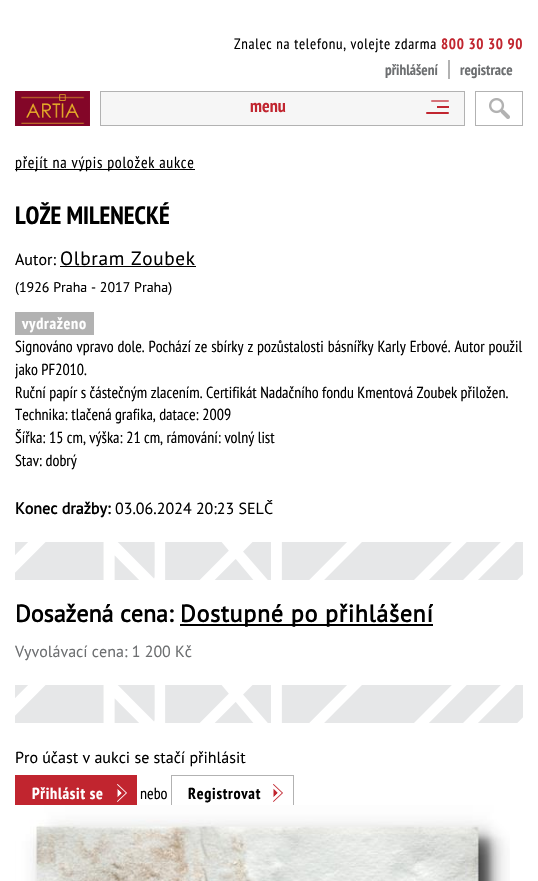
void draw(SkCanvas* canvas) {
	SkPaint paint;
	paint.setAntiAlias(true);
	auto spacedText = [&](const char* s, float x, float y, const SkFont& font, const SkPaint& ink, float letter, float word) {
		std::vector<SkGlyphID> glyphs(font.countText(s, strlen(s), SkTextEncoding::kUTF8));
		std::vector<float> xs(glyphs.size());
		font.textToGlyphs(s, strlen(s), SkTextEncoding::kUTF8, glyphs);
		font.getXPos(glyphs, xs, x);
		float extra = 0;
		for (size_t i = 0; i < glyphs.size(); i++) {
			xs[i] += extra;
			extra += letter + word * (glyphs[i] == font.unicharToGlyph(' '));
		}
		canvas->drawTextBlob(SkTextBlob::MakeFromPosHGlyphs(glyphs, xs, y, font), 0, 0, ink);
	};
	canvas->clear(0xffffffff);
	SkFont f1(fontMgr->matchFamilyStyle("PT Sans Narrow", SkFontStyle::Normal()), 15);
	f1.setSubpixel(true);
	paint.setColor(0xff000000);
	spacedText("Znalec na telefonu, volejte zdarma", 234, 49, f1, paint, 0.7, 0);
	SkFont f2(fontMgr->matchFamilyStyle("PT Sans Narrow", SkFontStyle::Bold()), 15);
	f2.setSubpixel(true);
	paint.setColor(0xffc1252f);
	spacedText("800 30 30 90", 441, 49, f2, paint, 0.7, 0);
	paint.setColor(0xff6d6f71);
	canvas->drawString("přihlášení", 385, 75, f2, paint);
	paint.setColor(0xffb2b2b2);
	canvas->drawRect(SkRect::MakeXYWH(448, 60, 2, 19), paint);
	paint.setColor(0xff6d6f71);
	canvas->drawString("registrace", 460, 75, f2, paint);
	canvas->drawImageRect(SkImages::DeferredFromEncodedData(SkData::MakeFromFileName("img1.png")), SkRect::MakeXYWH(15, 91, 75, 35), SkSamplingOptions());
	paint.setColor(0xfff6f6f6);
	canvas->drawRect(SkRect::MakeXYWH(100.5, 91.5, 364, 34), paint);
	paint.setStroke(true);
	paint.setStrokeWidth(1);
	paint.setColor(0xffb2b2b2);
	canvas->drawRect(SkRect::MakeXYWH(100.5, 91.5, 364, 34), paint);
	SkFont f3(fontMgr->matchFamilyStyle("PT Sans Narrow", SkFontStyle::Bold()), 18);
	f3.setSubpixel(true);
	paint.setStroke(false);
	paint.setColor(0xffc1252f);
	canvas->drawString("menu", 250, 112, f3, paint);
	canvas->drawRect(SkRect::MakeXYWH(437, 106, 12, 2), paint);
	paint.setColor(0xffd67178);
	canvas->drawRoundRect(SkRect::MakeXYWH(431, 100, 18, 2), 1, 1, paint);
	paint.setColor(0xffc1252f);
	canvas->drawRoundRect(SkRect::MakeXYWH(426, 112, 23, 2), 1, 1, paint);
	canvas->drawImageRect(SkImages::DeferredFromEncodedData(SkData::MakeFromFileName("img2.png")), SkRect::MakeXYWH(489, 98, 21, 21), SkSamplingOptions());
	paint.setStroke(true);
	paint.setColor(0xffb2b2b2);
	canvas->drawRect(SkRect::MakeXYWH(475.5, 91.5, 47, 34), paint);
	paint.setStroke(false);
	paint.setColor(0xff000000);
	canvas->drawRect(SkRect::MakeXYWH(15, 169, 180, 1), paint);
	SkFont f4(fontMgr->matchFamilyStyle("PT Sans Narrow", SkFontStyle::Normal()), 16);
	f4.setSubpixel(true);
	spacedText("přejít na výpis položek aukce", 15, 168, f4, paint, 0.7, 0);
	SkFont f5(fontMgr->matchFamilyStyle("PT Sans Narrow", SkFontStyle::Bold()), 25);
	f5.setSubpixel(true);
	canvas->drawString("LOŽE MILENECKÉ", 15, 224, f5, paint);
	SkFont f6(fontMgr->matchFamilyStyle("PT Sans", SkFontStyle::Normal()), 16);
	f6.setSubpixel(true);
	canvas->drawString("Autor:", 15, 265, f6, paint);
	SkFont f7(fontMgr->matchFamilyStyle("PT Sans", SkFontStyle::Normal()), 19.25);
	f7.setSubpixel(true);
	spacedText("Olbram Zoubek", 60, 265, f7, paint, 0.7, 0);
	canvas->drawRect(SkRect::MakeXYWH(60, 266, 136, 1), paint);
	SkFont f8(fontMgr->matchFamilyStyle("PT Sans", SkFontStyle::Normal()), 14);
	f8.setSubpixel(true);
	canvas->drawString("(1926 Praha - 2017 Praha)", 15, 292, f8, paint);
	paint.setColor(0xffb2b2b2);
	canvas->drawRect(SkRect::MakeXYWH(15, 312, 79, 23), paint);
	SkFont f9(fontMgr->matchFamilyStyle("PT Sans Narrow", SkFontStyle::Bold()), 16);
	f9.setSubpixel(true);
	paint.setColor(0xffffffff);
	spacedText("vydraženo", 22, 329, f9, paint, 0.7, 0);
	paint.setColor(0xff000000);
	spacedText("Signováno vpravo dole. Pochází ze sbírky z pozůstalosti básnířky Karly Erbové. Autor použil", 15, 352, f4, paint, 0, 0.5);
	canvas->drawString("jako PF2010.", 15, 375, f4, paint);
	canvas->drawString("Ruční papír s částečným zlacením. Certifikát Nadačního fondu Kmentová Zoubek přiložen.", 15, 398, f4, paint);
	canvas->drawString("Technika: tlačená grafika, datace: 2009", 15, 420, f4, paint);
	canvas->drawString("Šířka: 15 cm, výška: 21 cm, rámování: volný list", 15, 443, f4, paint);
	canvas->drawString("Stav: dobrý", 15, 466, f4, paint);
	SkFont f10(fontMgr->matchFamilyStyle("PT Sans", SkFontStyle::Bold()), 16);
	f10.setSubpixel(true);
	canvas->drawString("Konec dražby:", 15, 514, f10, paint);
	canvas->drawString("03.06.2024 20:23 SELČ", 115, 514, f6, paint);
	canvas->drawImageRect(SkImages::DeferredFromEncodedData(SkData::MakeFromFileName("img3.png")), SkRect::MakeXYWH(15, 542, 508, 38), SkSamplingOptions());
	SkFont f11(fontMgr->matchFamilyStyle("PT Sans", SkFontStyle::Bold()), 24);
	f11.setSubpixel(true);
	canvas->drawString("Dosažená cena:", 15, 622, f11, paint);
	canvas->drawRect(SkRect::MakeXYWH(180, 624, 253, 2), paint);
	spacedText("Dostupné po přihlášení", 180, 622, f11, paint, 0.7, 0);
	paint.setColor(0xff6d6f71);
	canvas->drawString("Vyvolávací cena: 1 200 Kč", 15, 657, f6, paint);
	canvas->drawImageRect(SkImages::DeferredFromEncodedData(SkData::MakeFromFileName("img3.png")), SkRect::MakeXYWH(15, 685, 508, 38), SkSamplingOptions());
	paint.setColor(0xff000000);
	canvas->drawString("Pro účast v aukci se stačí přihlásit", 15, 763, f6, paint);
	paint.setColor(0xffc1252f);
	canvas->drawRect(SkRect::MakeXYWH(15, 775, 122, 30), paint);
	paint.setColor(0xffffffff);
	spacedText("Přihlásit se", 32, 799, f9, paint, 0.7, 0);
	canvas->drawImageRect(SkImages::DeferredFromEncodedData(SkData::MakeFromFileName("img4.png")), SkRect::MakeXYWH(117, 784, 10, 18), SkSamplingOptions());
	paint.setColor(0xff000000);
	canvas->drawString("nebo", 140, 799, f4, paint);
	canvas->drawImageRect(SkImages::DeferredFromEncodedData(SkData::MakeFromFileName("img5.png")), SkRect::MakeXYWH(273, 784, 10, 18), SkSamplingOptions());
	paint.setStroke(true);
	paint.setColor(0xffb2b2b2);
	canvas->drawRect(SkRect::MakeXYWH(171.5, 775.5, 122, 35), paint);
	paint.setStroke(false);
	paint.setColor(0xff000000);
	spacedText("Registrovat", 188, 799, f9, paint, 0.7, 0);
	canvas->drawImageRect(SkImages::DeferredFromEncodedData(SkData::MakeFromFileName("img6.png")), SkRect::MakeXYWH(15, 805, 495, 76), SkSamplingOptions());
}
